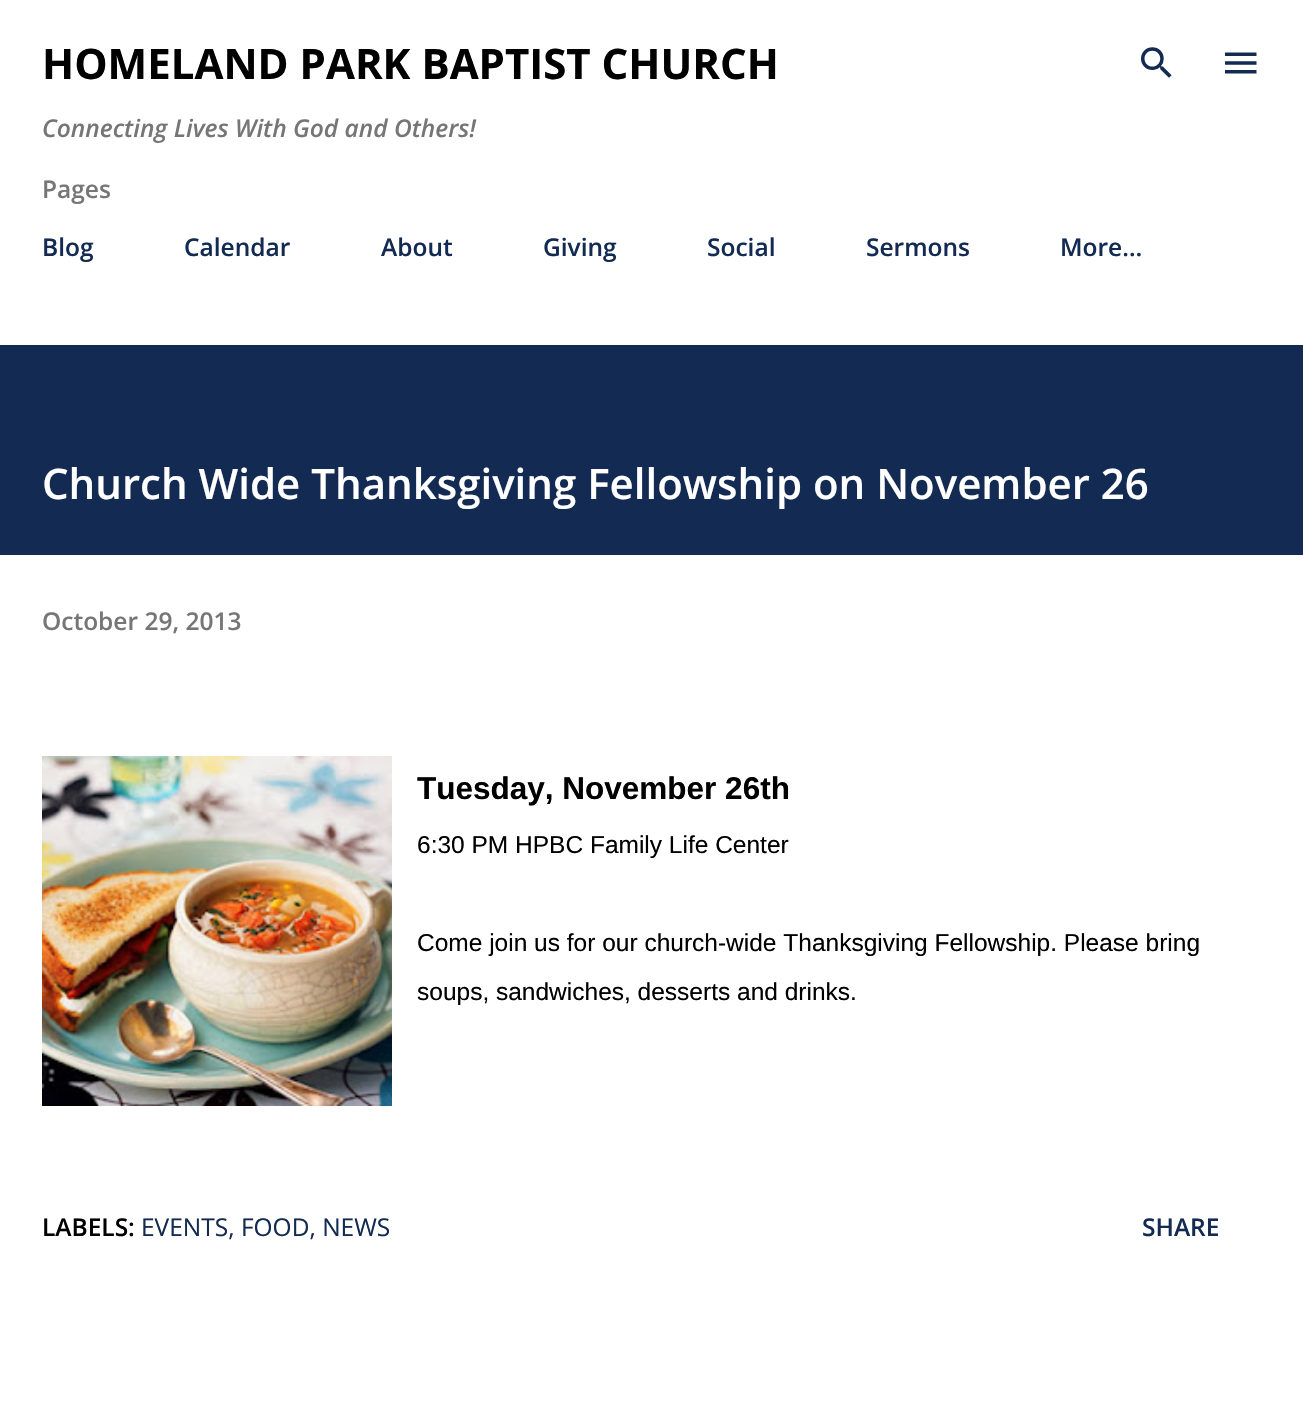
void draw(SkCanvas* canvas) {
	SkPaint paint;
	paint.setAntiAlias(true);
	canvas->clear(0xffffffff);
	SkFont f1(fontMgr->matchFamilyStyle("Open Sans", SkFontStyle::Bold()), 42);
	f1.setSubpixel(true);
	paint.setColor(0xff000000);
	canvas->drawString("HOMELAND PARK BAPTIST CHURCH", 42, 79, f1, paint);
	SkFont f2(fontMgr->matchFamilyStyle("Open Sans", SkFontStyle(600, SkFontStyle::kNormal_Width, SkFontStyle::kItalic_Slant)), 24.5);
	f2.setSubpixel(true);
	paint.setColor(0xff767676);
	canvas->drawString("Connecting Lives With God and Others!", 42, 137, f2, paint);
	canvas->drawImageRect(SkImages::DeferredFromEncodedData(SkData::MakeFromFileName("img1.png")), SkRect::MakeXYWH(1141, 47, 31, 31), SkSamplingOptions());
	canvas->drawImageRect(SkImages::DeferredFromEncodedData(SkData::MakeFromFileName("img2.png")), SkRect::MakeXYWH(1225, 52, 32, 22), SkSamplingOptions());
	SkFont f3(fontMgr->matchFamilyStyle("Open Sans", SkFontStyle(600, SkFontStyle::kNormal_Width, SkFontStyle::kUpright_Slant)), 24.5);
	f3.setSubpixel(true);
	canvas->drawString("Pages", 42, 198, f3, paint);
	paint.setColor(0xff132a53);
	canvas->drawString("Blog", 42, 256, f3, paint);
	canvas->drawString("Calendar", 184, 256, f3, paint);
	canvas->drawString("About", 381, 256, f3, paint);
	canvas->drawString("Giving", 543, 256, f3, paint);
	canvas->drawString("Social", 707, 256, f3, paint);
	canvas->drawString("Sermons", 866, 256, f3, paint);
	canvas->drawString("More…", 1060, 256, f3, paint);
	canvas->drawRect(SkRect::MakeXYWH(0, 345, 1303, 210), paint);
	SkFont f4(fontMgr->matchFamilyStyle("Open Sans", SkFontStyle(600, SkFontStyle::kNormal_Width, SkFontStyle::kUpright_Slant)), 42);
	f4.setSubpixel(true);
	paint.setColor(0xffffffff);
	canvas->drawString("Church Wide Thanksgiving Fellowship on November 26", 42, 499, f4, paint);
	paint.setColor(0xff767676);
	canvas->drawString("October 29, 2013", 42, 630, f3, paint);
	canvas->drawImageRect(SkImages::DeferredFromEncodedData(SkData::MakeFromFileName("img3.png")), SkRect::MakeXYWH(42, 756, 350, 350), SkSamplingOptions());
	SkFont f5(fontMgr->matchFamilyStyle("Liberation Sans", SkFontStyle::Bold()), 31.5);
	f5.setSubpixel(true);
	paint.setColor(0xff000000);
	canvas->drawString("Tuesday, November 26th", 417, 799, f5, paint);
	SkFont f6(fontMgr->matchFamilyStyle("Liberation Sans", SkFontStyle::Normal()), 24.5);
	f6.setSubpixel(true);
	canvas->drawString("6:30 PM HPBC Family Life Center", 417, 853, f6, paint);
	canvas->drawString("Come join us for our church-wide Thanksgiving Fellowship. Please bring", 417, 951, f6, paint);
	canvas->drawString("soups, sandwiches, desserts and drinks.", 417, 1000, f6, paint);
	canvas->drawString("LABELS:", 42, 1236, f3, paint);
	SkFont f7(fontMgr->matchFamilyStyle("Open Sans", SkFontStyle::Normal()), 24.5);
	f7.setSubpixel(true);
	paint.setColor(0xff132a53);
	canvas->drawString("EVENTS, FOOD, NEWS", 141, 1236, f7, paint);
	canvas->drawString("SHARE", 1142, 1236, f3, paint);
}
